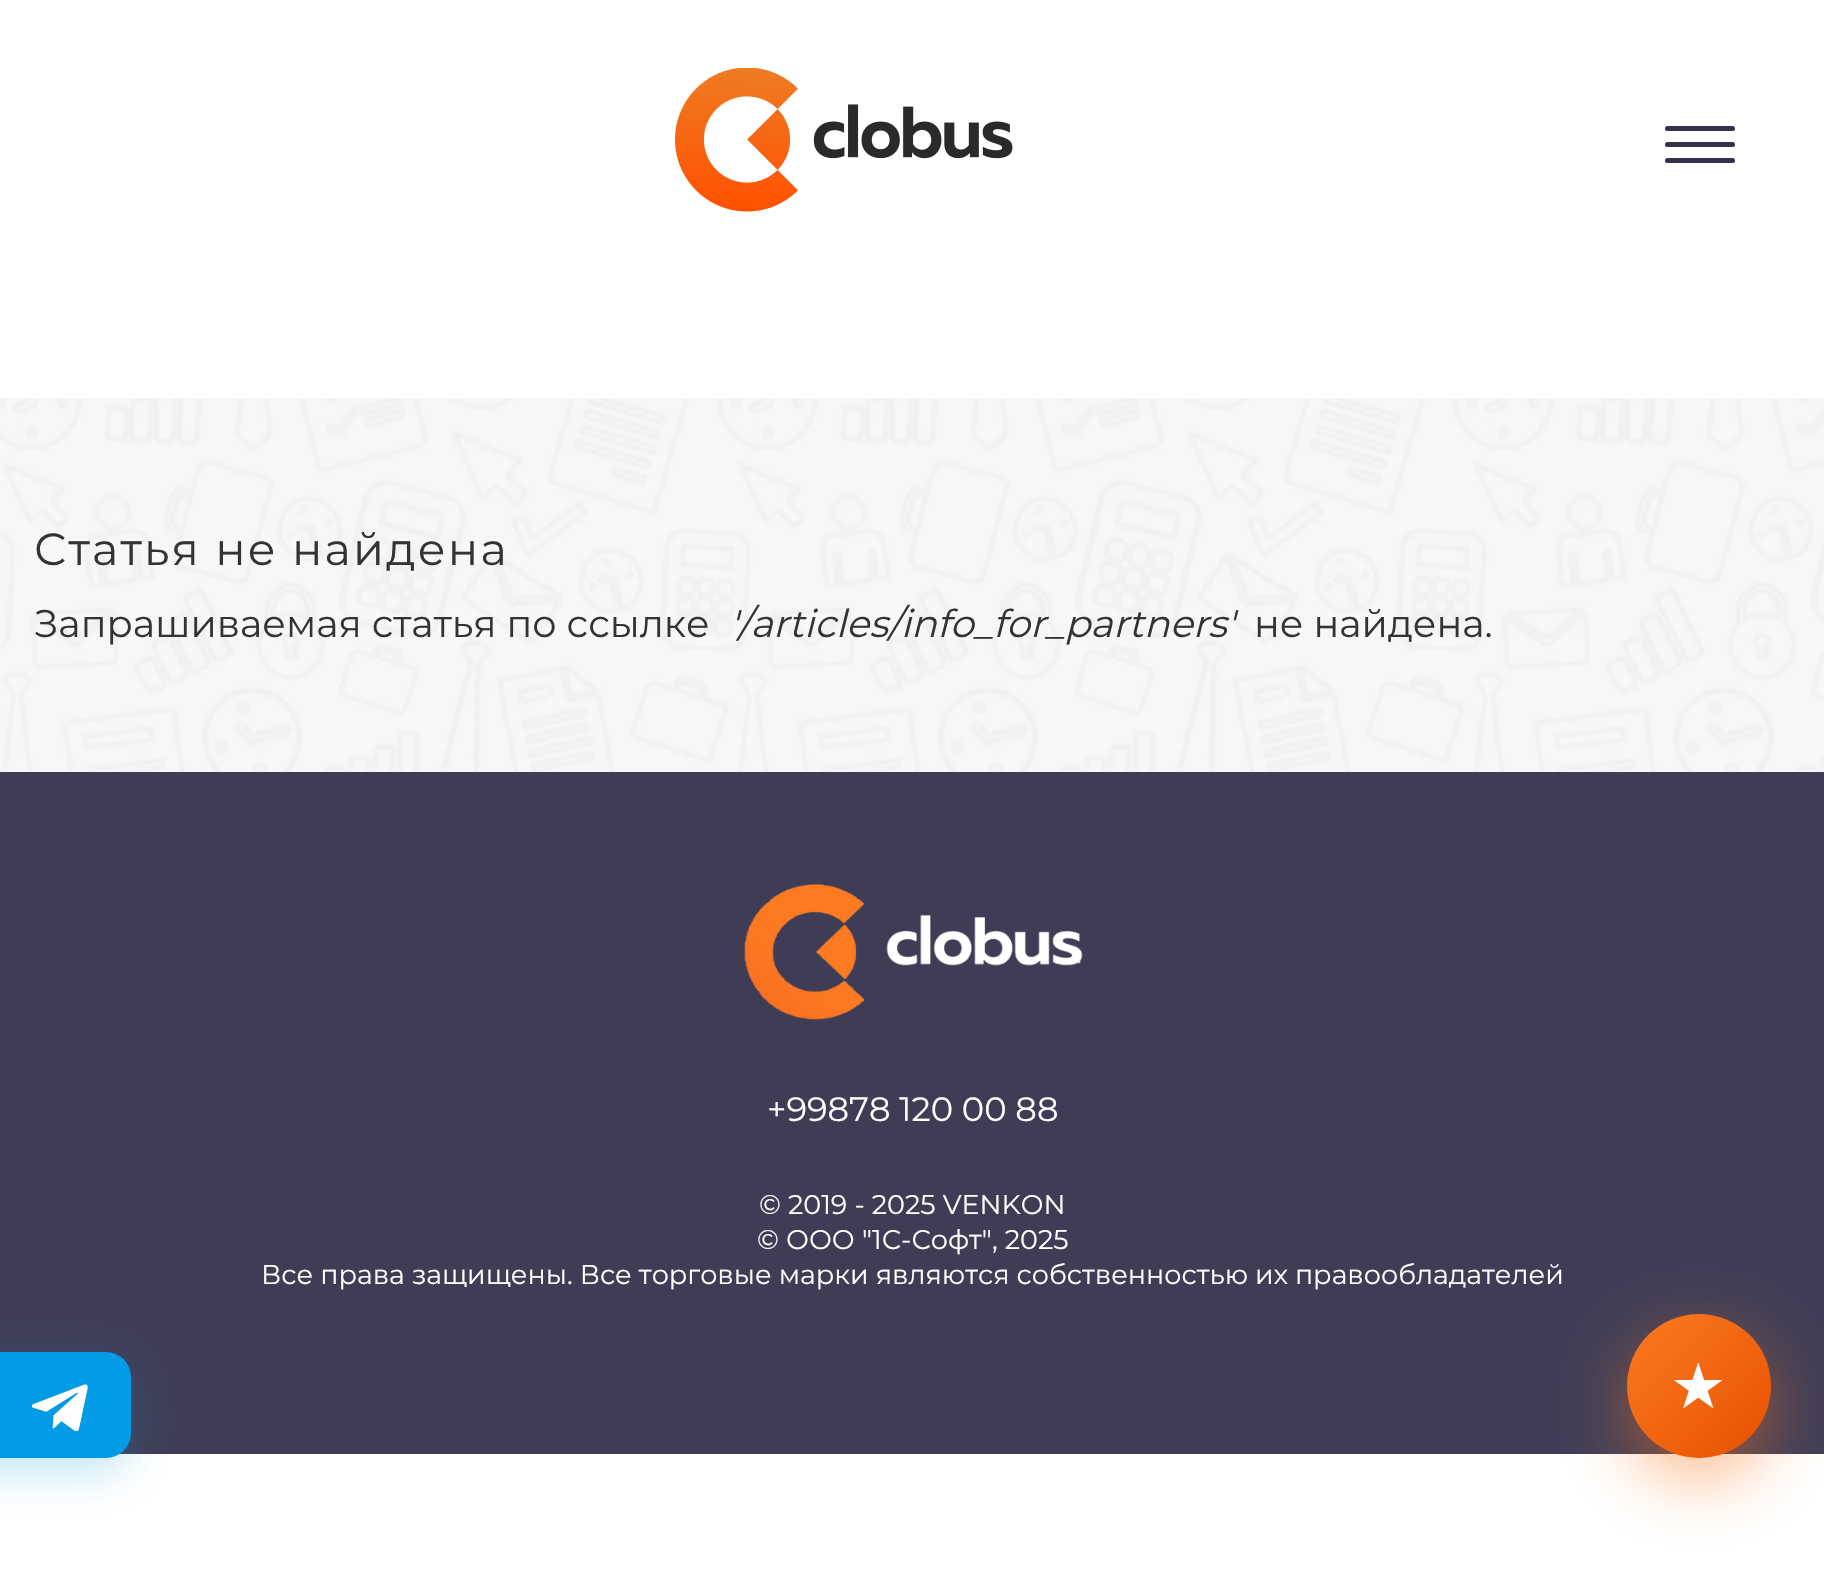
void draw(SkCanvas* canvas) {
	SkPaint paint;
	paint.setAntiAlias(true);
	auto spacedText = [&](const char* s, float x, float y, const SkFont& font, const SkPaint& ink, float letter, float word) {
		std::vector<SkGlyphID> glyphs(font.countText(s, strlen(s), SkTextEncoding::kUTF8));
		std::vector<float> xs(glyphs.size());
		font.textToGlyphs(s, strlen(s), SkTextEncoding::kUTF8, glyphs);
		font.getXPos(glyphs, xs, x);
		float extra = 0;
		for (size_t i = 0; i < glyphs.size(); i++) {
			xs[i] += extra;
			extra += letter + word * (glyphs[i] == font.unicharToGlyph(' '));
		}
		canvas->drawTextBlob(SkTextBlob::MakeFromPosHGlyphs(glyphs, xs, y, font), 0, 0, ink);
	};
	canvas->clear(0xffffffff);
	canvas->drawImageRect(SkImages::DeferredFromEncodedData(SkData::MakeFromFileName("img1.png")), SkRect::MakeXYWH(675, 68, 338, 144), SkSamplingOptions());
	paint.setColor(0xff33334f);
	canvas->drawRoundRect(SkRect::MakeXYWH(1665, 126, 70, 5), 2.5, 2.5, paint);
	canvas->drawRoundRect(SkRect::MakeXYWH(1665, 142, 70, 5), 2.5, 2.5, paint);
	canvas->drawRoundRect(SkRect::MakeXYWH(1665, 158, 70, 5), 2.5, 2.5, paint);
	canvas->drawImageRect(SkImages::DeferredFromEncodedData(SkData::MakeFromFileName("img2.png")), SkRect::MakeXYWH(0, 398, 1824, 374), SkSamplingOptions());
	SkFont f1(fontMgr->matchFamilyStyle("Montserrat", SkFontStyle::Normal()), 45);
	f1.setSubpixel(true);
	paint.setColor(0xff333333);
	spacedText("Статья не найдена", 34, 565, f1, paint, 2.25, 0);
	SkFont f2(fontMgr->matchFamilyStyle("Montserrat", SkFontStyle::Normal()), 38.25);
	f2.setSubpixel(true);
	canvas->drawString("Запрашиваемая статья по ссылке", 34, 637, f2, paint);
	SkFont f3(fontMgr->matchFamilyStyle("Montserrat", SkFontStyle::Italic()), 38.25);
	f3.setSubpixel(true);
	canvas->drawString("'/articles/info_for_partners'", 730, 637, f3, paint);
	canvas->drawString("не найдена.", 1254, 637, f2, paint);
	paint.setColor(0xff3f3d56);
	canvas->drawRect(SkRect::MakeXYWH(0, 772, 1824, 682), paint);
	canvas->drawImageRect(SkImages::DeferredFromEncodedData(SkData::MakeFromFileName("img3.png")), SkRect::MakeXYWH(744, 884, 339, 136), SkSamplingOptions());
	SkFont f4(fontMgr->matchFamilyStyle("Montserrat", SkFontStyle::Normal()), 33.75);
	f4.setSubpixel(true);
	paint.setColor(0xfffefefe);
	canvas->drawString("+99878 120 00 88", 767, 1121, f4, paint);
	SkFont f5(fontMgr->matchFamilyStyle("Montserrat", SkFontStyle::Normal()), 27);
	f5.setSubpixel(true);
	canvas->drawString("© 2019 - 2025 VENKON", 759, 1214, f5, paint);
	canvas->drawString("© ООО \"1С-Софт\", 2025", 757, 1249, f5, paint);
	canvas->drawString("Все права защищены. Все торговые марки являются собственностью их правообладателей", 261, 1284, f5, paint);
	paint.setColor(0x40039be5);
	paint.setMaskFilter(SkMaskFilter::MakeBlur(kNormal_SkBlurStyle, 22.5));
	canvas->drawRoundRect(SkRect::MakeXYWH(-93, 1366, 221, 106), 25, 25, paint);
	paint.setMaskFilter(nullptr);
	paint.setColor(0xff039be5);
	canvas->drawRoundRect(SkRect::MakeXYWH(-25, 1352, 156, 106), 25, 25, paint);
	canvas->drawImageRect(SkImages::DeferredFromEncodedData(SkData::MakeFromFileName("img4.png")), SkRect::MakeXYWH(32, 1384, 56, 47), SkSamplingOptions());
	paint.setColor(0x80fc7a22);
	paint.setMaskFilter(SkMaskFilter::MakeBlur(kNormal_SkBlurStyle, 34));
	canvas->drawRoundRect(SkRect::MakeXYWH(1627, 1337, 144, 144), 72, 72, paint);
	paint.setMaskFilter(nullptr);
	{
		const SkColor colors[] = {0xfffc7a22, 0xffe65100};
		const float stops[] = {0, 1};
		const SkPoint ends[] = {{1627, 1314}, {1771, 1458}};
		paint.setShader(SkGradientShader::MakeLinear(ends, colors, stops, 2, SkTileMode::kClamp));
		paint.setAlpha(255);
	}
	canvas->drawCircle(1699, 1386, 72, paint);
	SkFont f6(fontMgr->matchFamilyStyle("DejaVu Sans", SkFontStyle::Normal()), 63);
	f6.setSubpixel(true);
	paint.setShader(nullptr);
	paint.setColor(0xfffefefe);
	canvas->drawString("★", 1670, 1408, f6, paint);
}
